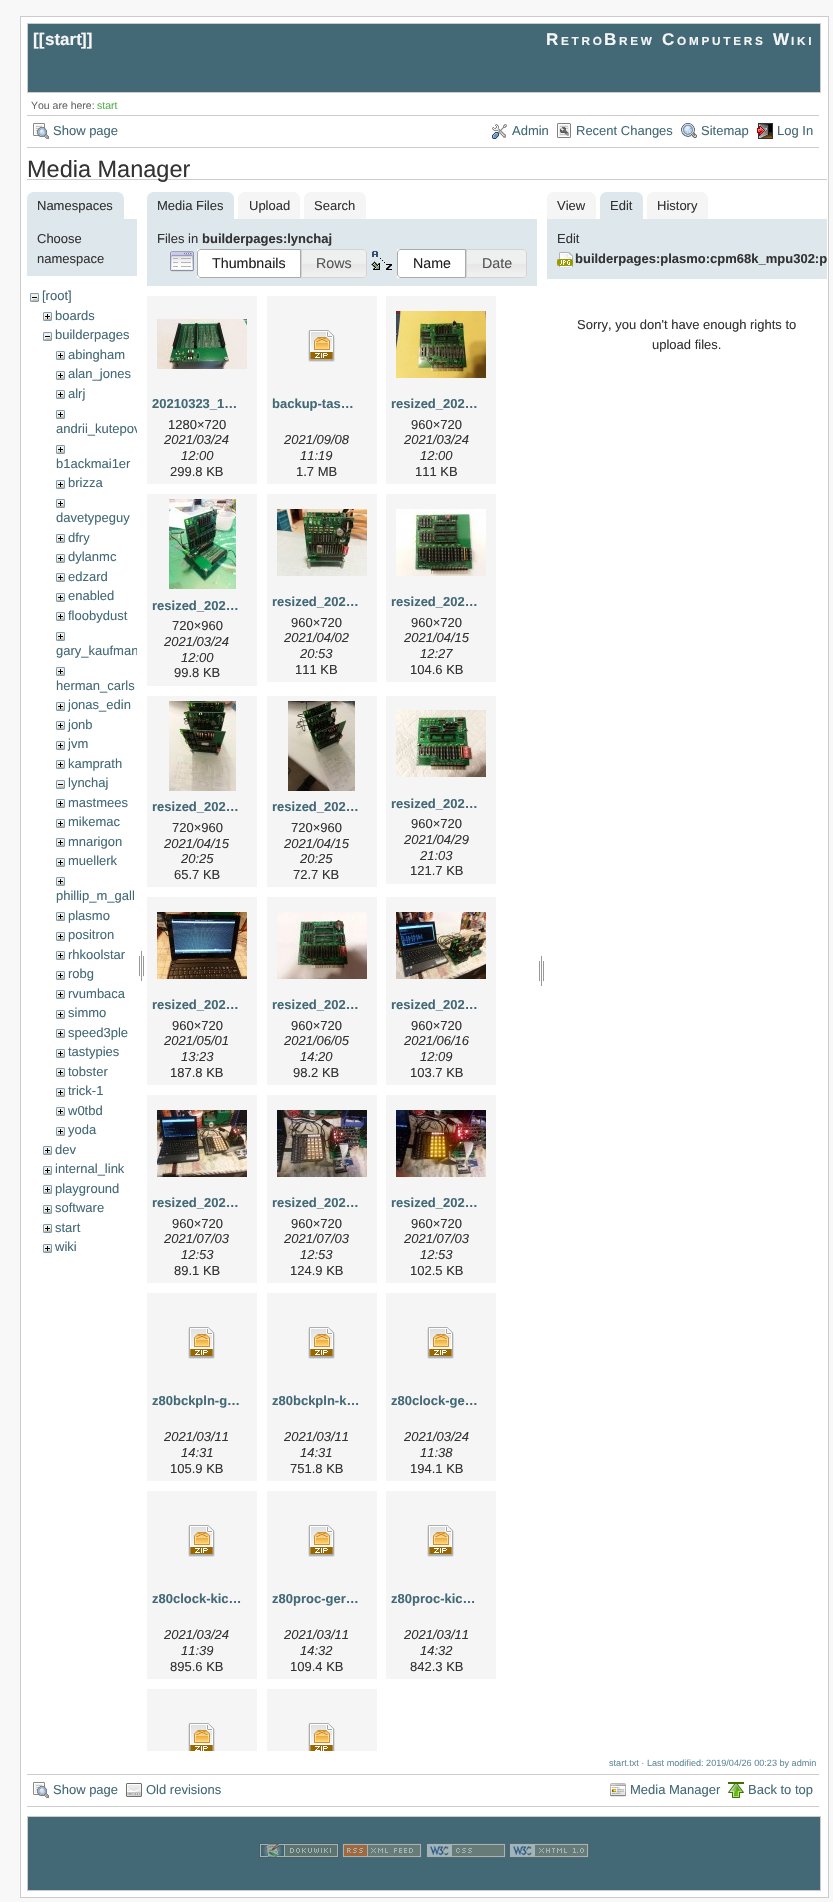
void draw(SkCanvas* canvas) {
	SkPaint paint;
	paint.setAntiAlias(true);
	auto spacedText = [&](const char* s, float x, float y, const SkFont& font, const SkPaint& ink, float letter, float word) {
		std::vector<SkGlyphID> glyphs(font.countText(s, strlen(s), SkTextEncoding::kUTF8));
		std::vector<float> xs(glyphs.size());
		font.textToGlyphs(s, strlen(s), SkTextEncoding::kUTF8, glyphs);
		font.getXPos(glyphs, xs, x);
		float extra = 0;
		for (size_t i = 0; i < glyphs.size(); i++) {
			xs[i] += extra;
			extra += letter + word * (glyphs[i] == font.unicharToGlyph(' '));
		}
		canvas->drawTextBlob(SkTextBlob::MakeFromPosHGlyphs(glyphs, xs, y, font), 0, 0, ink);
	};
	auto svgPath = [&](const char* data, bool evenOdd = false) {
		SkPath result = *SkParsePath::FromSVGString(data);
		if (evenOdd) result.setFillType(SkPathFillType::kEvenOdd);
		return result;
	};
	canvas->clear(0xfff8f8f8);
	paint.setColor(0xffffffff);
	canvas->drawRect(SkRect::MakeXYWH(20.5, 16.5, 808, 1881), paint);
	paint.setStroke(true);
	paint.setStrokeWidth(1);
	paint.setColor(0xffcccccc);
	canvas->drawRect(SkRect::MakeXYWH(20.5, 16.5, 808, 1881), paint);
	paint.setStroke(false);
	paint.setColor(0xff436976);
	canvas->drawRect(SkRect::MakeXYWH(27.5, 23.5, 793, 69), paint);
	paint.setStroke(true);
	paint.setColor(0xffcccccc);
	canvas->drawRect(SkRect::MakeXYWH(27.5, 23.5, 793, 69), paint);
	SkFont f1(fontMgr->matchFamilyStyle("Liberation Sans", SkFontStyle::Bold()), 17);
	f1.setSubpixel(true);
	paint.setStroke(false);
	paint.setColor(0xfff5f5f5);
	canvas->drawString("[[", 33, 45, f1, paint);
	canvas->drawString("start", 45, 45, f1, paint);
	canvas->drawString("]]", 81, 45, f1, paint);
	spacedText("R", 546, 45, f1, paint, 2.75, 0);
	SkFont f2(fontMgr->matchFamilyStyle("Liberation Sans", SkFontStyle::Bold()), 11.75);
	f2.setSubpixel(true);
	spacedText("ETRO", 561, 45, f2, paint, 2.75, 0);
	spacedText("B", 604, 45, f1, paint, 2.75, 0);
	spacedText("REW", 619, 45, f2, paint, 2.75, 0);
	spacedText("C", 662, 45, f1, paint, 2.75, 0);
	spacedText("OMPUTERS", 677, 45, f2, paint, 2.75, 0);
	spacedText("W", 773, 45, f1, paint, 2.75, 0);
	spacedText("IKI", 791, 45, f2, paint, 2.75, 0);
	SkFont f3(fontMgr->matchFamilyStyle("Liberation Sans", SkFontStyle::Normal()), 10.5);
	f3.setSubpixel(true);
	paint.setColor(0xff666666);
	canvas->drawString("You are here:", 31, 109, f3, paint);
	paint.setColor(0xff56b04f);
	canvas->drawString("start", 97, 109, f3, paint);
	paint.setColor(0xffcccccc);
	canvas->drawRect(SkRect::MakeXYWH(27, 115, 792, 1), paint);
	canvas->drawRect(SkRect::MakeXYWH(27, 147, 792, 1), paint);
	canvas->drawImageRect(SkImages::DeferredFromEncodedData(SkData::MakeFromFileName("img1.png")), SkRect::MakeXYWH(33, 123, 16, 16), SkSamplingOptions());
	SkFont f4(fontMgr->matchFamilyStyle("Liberation Sans", SkFontStyle::Normal()), 13);
	f4.setSubpixel(true);
	paint.setColor(0xff436976);
	canvas->drawString("Show page", 53, 135, f4, paint);
	canvas->drawImageRect(SkImages::DeferredFromEncodedData(SkData::MakeFromFileName("img2.png")), SkRect::MakeXYWH(492, 124, 15, 15), SkSamplingOptions());
	canvas->drawString("Admin", 512, 135, f4, paint);
	canvas->drawImageRect(SkImages::DeferredFromEncodedData(SkData::MakeFromFileName("img3.png")), SkRect::MakeXYWH(557, 123, 14, 15), SkSamplingOptions());
	canvas->drawString("Recent Changes", 576, 135, f4, paint);
	canvas->drawImageRect(SkImages::DeferredFromEncodedData(SkData::MakeFromFileName("img4.png")), SkRect::MakeXYWH(681, 123, 16, 15), SkSamplingOptions());
	canvas->drawString("Sitemap", 701, 135, f4, paint);
	canvas->drawImageRect(SkImages::DeferredFromEncodedData(SkData::MakeFromFileName("img5.png")), SkRect::MakeXYWH(757, 123, 16, 16), SkSamplingOptions());
	canvas->drawString("Log In", 777, 135, f4, paint);
	paint.setColor(0xffcccccc);
	canvas->drawRect(SkRect::MakeXYWH(27, 179, 800, 1), paint);
	SkFont f5(fontMgr->matchFamilyStyle("Liberation Sans", SkFontStyle::Normal()), 23.5);
	f5.setSubpixel(true);
	paint.setColor(0xff333333);
	canvas->drawString("Media Manager", 27, 177, f5, paint);
	paint.setColor(0xffdee7ec);
	canvas->drawPath(svgPath("M34 192H117C121 192 124 195 124 199V219H27V199C27 195 30 192 34 192Z"), paint);
	paint.setColor(0xff333333);
	canvas->drawString("Namespaces", 37, 210, f4, paint);
	paint.setColor(0xffdee7ec);
	canvas->drawRect(SkRect::MakeXYWH(27, 219, 110, 57), paint);
	paint.setColor(0xff333333);
	canvas->drawString("Choose", 37, 243, f4, paint);
	canvas->drawString("namespace", 37, 263, f4, paint);
	canvas->drawImageRect(SkImages::DeferredFromEncodedData(SkData::MakeFromFileName("img6.png")), SkRect::MakeXYWH(30, 293, 9, 9), SkSamplingOptions());
	paint.setColor(0xff436976);
	canvas->drawString("[root]", 42, 300, f4, paint);
	canvas->drawImageRect(SkImages::DeferredFromEncodedData(SkData::MakeFromFileName("img7.png")), SkRect::MakeXYWH(43, 312, 9, 9), SkSamplingOptions());
	canvas->drawString("boards", 55, 320, f4, paint);
	canvas->drawImageRect(SkImages::DeferredFromEncodedData(SkData::MakeFromFileName("img6.png")), SkRect::MakeXYWH(43, 332, 9, 9), SkSamplingOptions());
	canvas->drawString("builderpages", 55, 339, f4, paint);
	canvas->drawImageRect(SkImages::DeferredFromEncodedData(SkData::MakeFromFileName("img7.png")), SkRect::MakeXYWH(56, 351, 9, 9), SkSamplingOptions());
	canvas->drawString("abingham", 68, 359, f4, paint);
	canvas->drawImageRect(SkImages::DeferredFromEncodedData(SkData::MakeFromFileName("img7.png")), SkRect::MakeXYWH(56, 371, 9, 9), SkSamplingOptions());
	canvas->drawString("alan_jones", 68, 378, f4, paint);
	canvas->drawImageRect(SkImages::DeferredFromEncodedData(SkData::MakeFromFileName("img7.png")), SkRect::MakeXYWH(56, 390, 9, 9), SkSamplingOptions());
	canvas->drawString("alrj", 68, 398, f4, paint);
	canvas->drawImageRect(SkImages::DeferredFromEncodedData(SkData::MakeFromFileName("img7.png")), SkRect::MakeXYWH(56, 410, 9, 9), SkSamplingOptions());
	canvas->save();
	canvas->clipRect(SkRect::MakeXYWH(27, 286, 110, 1455));
	canvas->drawString("andrii_kutepov", 56, 433, f4, paint);
	canvas->restore();
	canvas->drawImageRect(SkImages::DeferredFromEncodedData(SkData::MakeFromFileName("img7.png")), SkRect::MakeXYWH(56, 445, 9, 9), SkSamplingOptions());
	canvas->drawString("b1ackmai1er", 56, 468, f4, paint);
	canvas->drawImageRect(SkImages::DeferredFromEncodedData(SkData::MakeFromFileName("img7.png")), SkRect::MakeXYWH(56, 480, 9, 9), SkSamplingOptions());
	canvas->drawString("brizza", 68, 487, f4, paint);
	canvas->drawImageRect(SkImages::DeferredFromEncodedData(SkData::MakeFromFileName("img7.png")), SkRect::MakeXYWH(56, 499, 9, 9), SkSamplingOptions());
	canvas->drawString("davetypeguy", 56, 522, f4, paint);
	canvas->drawImageRect(SkImages::DeferredFromEncodedData(SkData::MakeFromFileName("img7.png")), SkRect::MakeXYWH(56, 534, 9, 9), SkSamplingOptions());
	canvas->drawString("dfry", 68, 542, f4, paint);
	canvas->drawImageRect(SkImages::DeferredFromEncodedData(SkData::MakeFromFileName("img7.png")), SkRect::MakeXYWH(56, 554, 9, 9), SkSamplingOptions());
	canvas->drawString("dylanmc", 68, 561, f4, paint);
	canvas->drawImageRect(SkImages::DeferredFromEncodedData(SkData::MakeFromFileName("img7.png")), SkRect::MakeXYWH(56, 573, 9, 9), SkSamplingOptions());
	canvas->drawString("edzard", 68, 581, f4, paint);
	canvas->drawImageRect(SkImages::DeferredFromEncodedData(SkData::MakeFromFileName("img7.png")), SkRect::MakeXYWH(56, 593, 9, 9), SkSamplingOptions());
	canvas->drawString("enabled", 68, 600, f4, paint);
	canvas->drawImageRect(SkImages::DeferredFromEncodedData(SkData::MakeFromFileName("img7.png")), SkRect::MakeXYWH(56, 612, 9, 9), SkSamplingOptions());
	canvas->drawString("floobydust", 68, 620, f4, paint);
	canvas->drawImageRect(SkImages::DeferredFromEncodedData(SkData::MakeFromFileName("img7.png")), SkRect::MakeXYWH(56, 632, 9, 9), SkSamplingOptions());
	canvas->save();
	canvas->clipRect(SkRect::MakeXYWH(27, 286, 110, 1455));
	canvas->drawString("gary_kaufman", 56, 655, f4, paint);
	canvas->restore();
	canvas->drawImageRect(SkImages::DeferredFromEncodedData(SkData::MakeFromFileName("img7.png")), SkRect::MakeXYWH(56, 667, 9, 9), SkSamplingOptions());
	canvas->drawString("herman_carls", 56, 690, f4, paint);
	canvas->drawImageRect(SkImages::DeferredFromEncodedData(SkData::MakeFromFileName("img7.png")), SkRect::MakeXYWH(56, 702, 9, 9), SkSamplingOptions());
	canvas->drawString("jonas_edin", 68, 709, f4, paint);
	canvas->drawImageRect(SkImages::DeferredFromEncodedData(SkData::MakeFromFileName("img7.png")), SkRect::MakeXYWH(56, 721, 9, 9), SkSamplingOptions());
	canvas->drawString("jonb", 68, 729, f4, paint);
	canvas->drawImageRect(SkImages::DeferredFromEncodedData(SkData::MakeFromFileName("img7.png")), SkRect::MakeXYWH(56, 741, 9, 9), SkSamplingOptions());
	canvas->drawString("jvm", 68, 748, f4, paint);
	canvas->drawImageRect(SkImages::DeferredFromEncodedData(SkData::MakeFromFileName("img7.png")), SkRect::MakeXYWH(56, 760, 9, 9), SkSamplingOptions());
	canvas->drawString("kamprath", 68, 768, f4, paint);
	canvas->drawImageRect(SkImages::DeferredFromEncodedData(SkData::MakeFromFileName("img6.png")), SkRect::MakeXYWH(56, 780, 9, 9), SkSamplingOptions());
	canvas->drawString("lynchaj", 68, 787, f4, paint);
	canvas->drawImageRect(SkImages::DeferredFromEncodedData(SkData::MakeFromFileName("img7.png")), SkRect::MakeXYWH(56, 799, 9, 9), SkSamplingOptions());
	canvas->drawString("mastmees", 68, 807, f4, paint);
	canvas->drawImageRect(SkImages::DeferredFromEncodedData(SkData::MakeFromFileName("img7.png")), SkRect::MakeXYWH(56, 819, 9, 9), SkSamplingOptions());
	canvas->drawString("mikemac", 68, 826, f4, paint);
	canvas->drawImageRect(SkImages::DeferredFromEncodedData(SkData::MakeFromFileName("img7.png")), SkRect::MakeXYWH(56, 838, 9, 9), SkSamplingOptions());
	canvas->drawString("mnarigon", 68, 846, f4, paint);
	canvas->drawImageRect(SkImages::DeferredFromEncodedData(SkData::MakeFromFileName("img7.png")), SkRect::MakeXYWH(56, 858, 9, 9), SkSamplingOptions());
	canvas->drawString("muellerk", 68, 865, f4, paint);
	canvas->drawImageRect(SkImages::DeferredFromEncodedData(SkData::MakeFromFileName("img7.png")), SkRect::MakeXYWH(56, 877, 9, 9), SkSamplingOptions());
	canvas->drawString("phillip_m_gall", 56, 900, f4, paint);
	canvas->drawImageRect(SkImages::DeferredFromEncodedData(SkData::MakeFromFileName("img7.png")), SkRect::MakeXYWH(56, 912, 9, 9), SkSamplingOptions());
	canvas->drawString("plasmo", 68, 920, f4, paint);
	canvas->drawImageRect(SkImages::DeferredFromEncodedData(SkData::MakeFromFileName("img7.png")), SkRect::MakeXYWH(56, 932, 9, 9), SkSamplingOptions());
	canvas->drawString("positron", 68, 939, f4, paint);
	canvas->drawImageRect(SkImages::DeferredFromEncodedData(SkData::MakeFromFileName("img7.png")), SkRect::MakeXYWH(56, 951, 9, 9), SkSamplingOptions());
	canvas->drawString("rhkoolstar", 68, 959, f4, paint);
	canvas->drawImageRect(SkImages::DeferredFromEncodedData(SkData::MakeFromFileName("img7.png")), SkRect::MakeXYWH(56, 971, 9, 9), SkSamplingOptions());
	canvas->drawString("robg", 68, 978, f4, paint);
	canvas->drawImageRect(SkImages::DeferredFromEncodedData(SkData::MakeFromFileName("img7.png")), SkRect::MakeXYWH(56, 990, 9, 9), SkSamplingOptions());
	canvas->drawString("rvumbaca", 68, 998, f4, paint);
	canvas->drawImageRect(SkImages::DeferredFromEncodedData(SkData::MakeFromFileName("img7.png")), SkRect::MakeXYWH(56, 1010, 9, 9), SkSamplingOptions());
	canvas->drawString("simmo", 68, 1017, f4, paint);
	canvas->drawImageRect(SkImages::DeferredFromEncodedData(SkData::MakeFromFileName("img7.png")), SkRect::MakeXYWH(56, 1029, 9, 9), SkSamplingOptions());
	canvas->drawString("speed3ple", 68, 1037, f4, paint);
	canvas->drawImageRect(SkImages::DeferredFromEncodedData(SkData::MakeFromFileName("img7.png")), SkRect::MakeXYWH(56, 1049, 9, 9), SkSamplingOptions());
	canvas->drawString("tastypies", 68, 1056, f4, paint);
	canvas->drawImageRect(SkImages::DeferredFromEncodedData(SkData::MakeFromFileName("img7.png")), SkRect::MakeXYWH(56, 1068, 9, 9), SkSamplingOptions());
	canvas->drawString("tobster", 68, 1076, f4, paint);
	canvas->drawImageRect(SkImages::DeferredFromEncodedData(SkData::MakeFromFileName("img7.png")), SkRect::MakeXYWH(56, 1088, 9, 9), SkSamplingOptions());
	canvas->drawString("trick-1", 68, 1095, f4, paint);
	canvas->drawImageRect(SkImages::DeferredFromEncodedData(SkData::MakeFromFileName("img7.png")), SkRect::MakeXYWH(56, 1107, 9, 9), SkSamplingOptions());
	canvas->drawString("w0tbd", 68, 1115, f4, paint);
	canvas->drawImageRect(SkImages::DeferredFromEncodedData(SkData::MakeFromFileName("img7.png")), SkRect::MakeXYWH(56, 1127, 9, 9), SkSamplingOptions());
	canvas->drawString("yoda", 68, 1134, f4, paint);
	canvas->drawImageRect(SkImages::DeferredFromEncodedData(SkData::MakeFromFileName("img7.png")), SkRect::MakeXYWH(43, 1146, 9, 9), SkSamplingOptions());
	canvas->drawString("dev", 55, 1154, f4, paint);
	canvas->drawImageRect(SkImages::DeferredFromEncodedData(SkData::MakeFromFileName("img7.png")), SkRect::MakeXYWH(43, 1166, 9, 9), SkSamplingOptions());
	canvas->drawString("internal_link", 55, 1173, f4, paint);
	canvas->drawImageRect(SkImages::DeferredFromEncodedData(SkData::MakeFromFileName("img7.png")), SkRect::MakeXYWH(43, 1185, 9, 9), SkSamplingOptions());
	canvas->drawString("playground", 55, 1193, f4, paint);
	canvas->drawImageRect(SkImages::DeferredFromEncodedData(SkData::MakeFromFileName("img7.png")), SkRect::MakeXYWH(43, 1205, 9, 9), SkSamplingOptions());
	canvas->drawString("software", 55, 1212, f4, paint);
	canvas->drawImageRect(SkImages::DeferredFromEncodedData(SkData::MakeFromFileName("img7.png")), SkRect::MakeXYWH(43, 1224, 9, 9), SkSamplingOptions());
	canvas->drawString("start", 55, 1232, f4, paint);
	canvas->drawImageRect(SkImages::DeferredFromEncodedData(SkData::MakeFromFileName("img7.png")), SkRect::MakeXYWH(43, 1244, 9, 9), SkSamplingOptions());
	canvas->drawString("wiki", 55, 1251, f4, paint);
	canvas->drawImageRect(SkImages::DeferredFromEncodedData(SkData::MakeFromFileName("img8.png")), SkRect::MakeXYWH(139, 950, 5, 31), SkSamplingOptions());
	paint.setColor(0xffdee7ec);
	canvas->drawPath(svgPath("M154 192H227C231 192 234 195 234 199V219H147V199C147 195 150 192 154 192Z"), paint);
	paint.setColor(0xff333333);
	canvas->drawString("Media Files", 157, 210, f4, paint);
	paint.setColor(0xfff5f5f5);
	canvas->drawPath(svgPath("M245 192H293C297 192 300 195 300 199V219H238V199C238 195 241 192 245 192Z"), paint);
	paint.setColor(0xff333333);
	canvas->drawString("Upload", 249, 210, f4, paint);
	paint.setColor(0xfff5f5f5);
	canvas->drawPath(svgPath("M311 192H359C363 192 366 195 366 199V219H304V199C304 195 307 192 311 192Z"), paint);
	paint.setColor(0xff333333);
	canvas->drawString("Search", 314, 210, f4, paint);
	paint.setColor(0xffdee7ec);
	canvas->drawRect(SkRect::MakeXYWH(147, 219, 390, 67), paint);
	paint.setColor(0xff333333);
	canvas->drawString("Files in", 157, 243, f4, paint);
	SkFont f6(fontMgr->matchFamilyStyle("Liberation Sans", SkFontStyle::Bold()), 13);
	f6.setSubpixel(true);
	canvas->drawString("builderpages:lynchaj", 202, 243, f6, paint);
	canvas->drawImageRect(SkImages::DeferredFromEncodedData(SkData::MakeFromFileName("img9.png")), SkRect::MakeXYWH(170, 251, 24, 21), SkSamplingOptions());
	paint.setColor(0xffffffff);
	canvas->drawRect(SkRect::MakeXYWH(197, 249, 103, 29), paint);
	paint.setStroke(true);
	paint.setColor(0xffaaaaaa);
	canvas->drawPath(svgPath("M201 249.5H300.5V277.5H201C199 277.5 197.5 276 197.5 274V253C197.5 251 199 249.5 201 249.5Z"), paint);
	SkFont f7(fontMgr->matchFamilyStyle("Liberation Sans", SkFontStyle::Normal()), 14.25);
	f7.setSubpixel(true);
	paint.setStroke(false);
	paint.setColor(0xff212121);
	canvas->drawString("Thumbnails", 212, 268, f7, paint);
	canvas->drawImageRect(SkImages::DeferredFromEncodedData(SkData::MakeFromFileName("img10.png")), SkRect::MakeXYWH(302, 249, 65, 29), SkSamplingOptions());
	paint.setStroke(true);
	paint.setColor(0xffd3d3d3);
	canvas->drawPath(svgPath("M301.5 249.5H363C365 249.5 366.5 251 366.5 253V274C366.5 276 365 277.5 363 277.5H301.5Z"), paint);
	paint.setStroke(false);
	paint.setColor(0xff555555);
	canvas->drawString("Rows", 316, 268, f7, paint);
	canvas->drawImageRect(SkImages::DeferredFromEncodedData(SkData::MakeFromFileName("img11.png")), SkRect::MakeXYWH(371, 251, 21, 19), SkSamplingOptions());
	paint.setColor(0xffffffff);
	canvas->drawRect(SkRect::MakeXYWH(397, 249, 68, 29), paint);
	paint.setStroke(true);
	paint.setColor(0xffaaaaaa);
	canvas->drawPath(svgPath("M401 249.5H465.5V277.5H401C399 277.5 397.5 276 397.5 274V253C397.5 251 399 249.5 401 249.5Z"), paint);
	paint.setStroke(false);
	paint.setColor(0xff212121);
	canvas->drawString("Name", 413, 268, f7, paint);
	canvas->drawImageRect(SkImages::DeferredFromEncodedData(SkData::MakeFromFileName("img12.png")), SkRect::MakeXYWH(467, 249, 60, 29), SkSamplingOptions());
	paint.setStroke(true);
	paint.setColor(0xffd3d3d3);
	canvas->drawPath(svgPath("M466.5 249.5H523C525 249.5 526.5 251 526.5 253V274C526.5 276 525 277.5 523 277.5H466.5Z"), paint);
	paint.setStroke(false);
	paint.setColor(0xff555555);
	canvas->drawString("Date", 482, 268, f7, paint);
	paint.setColor(0xfff5f5f5);
	canvas->drawRect(SkRect::MakeXYWH(147, 296, 110, 188), paint);
	canvas->drawImageRect(SkImages::DeferredFromEncodedData(SkData::MakeFromFileName("img13.png")), SkRect::MakeXYWH(157, 319, 90, 50), SkSamplingOptions());
	paint.setColor(0xff436976);
	canvas->drawString("20210323_1…", 152, 408, f6, paint);
	paint.setColor(0xff333333);
	canvas->drawString("1280×720", 168, 429, f4, paint);
	SkFont f8(fontMgr->matchFamilyStyle("Liberation Sans", SkFontStyle::Italic()), 13);
	f8.setSubpixel(true);
	canvas->drawString("2021/03/24", 164, 444, f8, paint);
	canvas->drawString("12:00", 181, 460, f8, paint);
	canvas->drawString("299.8 KB", 170, 476, f4, paint);
	paint.setColor(0xfff5f5f5);
	canvas->drawRect(SkRect::MakeXYWH(267, 296, 110, 188), paint);
	canvas->drawImageRect(SkImages::DeferredFromEncodedData(SkData::MakeFromFileName("img14.png")), SkRect::MakeXYWH(308, 330, 27, 32), SkSamplingOptions());
	paint.setColor(0xff436976);
	canvas->drawString("backup-tas…", 272, 408, f6, paint);
	paint.setColor(0xff333333);
	canvas->drawString("2021/09/08", 284, 444, f8, paint);
	canvas->drawString("11:19", 300, 460, f8, paint);
	canvas->drawString("1.7 MB", 296, 476, f4, paint);
	paint.setColor(0xfff5f5f5);
	canvas->drawRect(SkRect::MakeXYWH(386, 296, 110, 188), paint);
	canvas->drawImageRect(SkImages::DeferredFromEncodedData(SkData::MakeFromFileName("img15.png")), SkRect::MakeXYWH(396, 311, 90, 67), SkSamplingOptions());
	paint.setColor(0xff436976);
	canvas->drawString("resized_202…", 391, 408, f6, paint);
	paint.setColor(0xff333333);
	canvas->drawString("960×720", 411, 429, f4, paint);
	canvas->drawString("2021/03/24", 404, 444, f8, paint);
	canvas->drawString("12:00", 420, 460, f8, paint);
	canvas->drawString("111 KB", 415, 476, f4, paint);
	paint.setColor(0xfff5f5f5);
	canvas->drawRect(SkRect::MakeXYWH(147, 494, 110, 192), paint);
	canvas->drawImageRect(SkImages::DeferredFromEncodedData(SkData::MakeFromFileName("img16.png")), SkRect::MakeXYWH(169, 499, 67, 90), SkSamplingOptions());
	paint.setColor(0xff436976);
	canvas->drawString("resized_202…", 152, 610, f6, paint);
	paint.setColor(0xff333333);
	canvas->drawString("720×960", 172, 630, f4, paint);
	canvas->drawString("2021/03/24", 164, 646, f8, paint);
	canvas->drawString("12:00", 181, 662, f8, paint);
	canvas->drawString("99.8 KB", 174, 677, f4, paint);
	paint.setColor(0xfff5f5f5);
	canvas->drawRect(SkRect::MakeXYWH(267, 494, 110, 188), paint);
	canvas->drawImageRect(SkImages::DeferredFromEncodedData(SkData::MakeFromFileName("img17.png")), SkRect::MakeXYWH(277, 509, 90, 67), SkSamplingOptions());
	paint.setColor(0xff436976);
	canvas->drawString("resized_202…", 272, 606, f6, paint);
	paint.setColor(0xff333333);
	canvas->drawString("960×720", 291, 627, f4, paint);
	canvas->drawString("2021/04/02", 284, 642, f8, paint);
	canvas->drawString("20:53", 300, 658, f8, paint);
	canvas->drawString("111 KB", 295, 674, f4, paint);
	paint.setColor(0xfff5f5f5);
	canvas->drawRect(SkRect::MakeXYWH(386, 494, 110, 188), paint);
	canvas->drawImageRect(SkImages::DeferredFromEncodedData(SkData::MakeFromFileName("img18.png")), SkRect::MakeXYWH(396, 509, 90, 67), SkSamplingOptions());
	paint.setColor(0xff436976);
	canvas->drawString("resized_202…", 391, 606, f6, paint);
	paint.setColor(0xff333333);
	canvas->drawString("960×720", 411, 627, f4, paint);
	canvas->drawString("2021/04/15", 404, 642, f8, paint);
	canvas->drawString("12:27", 420, 658, f8, paint);
	canvas->drawString("104.6 KB", 410, 674, f4, paint);
	paint.setColor(0xfff5f5f5);
	canvas->drawRect(SkRect::MakeXYWH(147, 696, 110, 191), paint);
	canvas->drawImageRect(SkImages::DeferredFromEncodedData(SkData::MakeFromFileName("img19.png")), SkRect::MakeXYWH(169, 701, 67, 90), SkSamplingOptions());
	paint.setColor(0xff436976);
	canvas->drawString("resized_202…", 152, 811, f6, paint);
	paint.setColor(0xff333333);
	canvas->drawString("720×960", 172, 832, f4, paint);
	canvas->drawString("2021/04/15", 164, 848, f8, paint);
	canvas->drawString("20:25", 181, 863, f8, paint);
	canvas->drawString("65.7 KB", 174, 879, f4, paint);
	paint.setColor(0xfff5f5f5);
	canvas->drawRect(SkRect::MakeXYWH(267, 696, 110, 191), paint);
	canvas->drawImageRect(SkImages::DeferredFromEncodedData(SkData::MakeFromFileName("img20.png")), SkRect::MakeXYWH(288, 701, 67, 90), SkSamplingOptions());
	paint.setColor(0xff436976);
	canvas->drawString("resized_202…", 272, 811, f6, paint);
	paint.setColor(0xff333333);
	canvas->drawString("720×960", 291, 832, f4, paint);
	canvas->drawString("2021/04/15", 284, 848, f8, paint);
	canvas->drawString("20:25", 300, 863, f8, paint);
	canvas->drawString("72.7 KB", 293, 879, f4, paint);
	paint.setColor(0xfff5f5f5);
	canvas->drawRect(SkRect::MakeXYWH(386, 696, 110, 188), paint);
	canvas->drawImageRect(SkImages::DeferredFromEncodedData(SkData::MakeFromFileName("img21.png")), SkRect::MakeXYWH(396, 710, 90, 67), SkSamplingOptions());
	paint.setColor(0xff436976);
	canvas->drawString("resized_202…", 391, 808, f6, paint);
	paint.setColor(0xff333333);
	canvas->drawString("960×720", 411, 828, f4, paint);
	canvas->drawString("2021/04/29", 404, 844, f8, paint);
	canvas->drawString("21:03", 420, 860, f8, paint);
	canvas->drawString("121.7 KB", 410, 875, f4, paint);
	paint.setColor(0xfff5f5f5);
	canvas->drawRect(SkRect::MakeXYWH(147, 897, 110, 188), paint);
	canvas->drawImageRect(SkImages::DeferredFromEncodedData(SkData::MakeFromFileName("img22.png")), SkRect::MakeXYWH(157, 912, 90, 67), SkSamplingOptions());
	paint.setColor(0xff436976);
	canvas->drawString("resized_202…", 152, 1009, f6, paint);
	paint.setColor(0xff333333);
	canvas->drawString("960×720", 172, 1030, f4, paint);
	canvas->drawString("2021/05/01", 164, 1045, f8, paint);
	canvas->drawString("13:23", 181, 1061, f8, paint);
	canvas->drawString("187.8 KB", 170, 1077, f4, paint);
	paint.setColor(0xfff5f5f5);
	canvas->drawRect(SkRect::MakeXYWH(267, 897, 110, 188), paint);
	canvas->drawImageRect(SkImages::DeferredFromEncodedData(SkData::MakeFromFileName("img23.png")), SkRect::MakeXYWH(277, 912, 90, 67), SkSamplingOptions());
	paint.setColor(0xff436976);
	canvas->drawString("resized_202…", 272, 1009, f6, paint);
	paint.setColor(0xff333333);
	canvas->drawString("960×720", 291, 1030, f4, paint);
	canvas->drawString("2021/06/05", 284, 1045, f8, paint);
	canvas->drawString("14:20", 300, 1061, f8, paint);
	canvas->drawString("98.2 KB", 293, 1077, f4, paint);
	paint.setColor(0xfff5f5f5);
	canvas->drawRect(SkRect::MakeXYWH(386, 897, 110, 188), paint);
	canvas->drawImageRect(SkImages::DeferredFromEncodedData(SkData::MakeFromFileName("img24.png")), SkRect::MakeXYWH(396, 912, 90, 67), SkSamplingOptions());
	paint.setColor(0xff436976);
	canvas->drawString("resized_202…", 391, 1009, f6, paint);
	paint.setColor(0xff333333);
	canvas->drawString("960×720", 411, 1030, f4, paint);
	canvas->drawString("2021/06/16", 404, 1045, f8, paint);
	canvas->drawString("12:09", 420, 1061, f8, paint);
	canvas->drawString("103.7 KB", 410, 1077, f4, paint);
	paint.setColor(0xfff5f5f5);
	canvas->drawRect(SkRect::MakeXYWH(147, 1095, 110, 188), paint);
	canvas->drawImageRect(SkImages::DeferredFromEncodedData(SkData::MakeFromFileName("img25.png")), SkRect::MakeXYWH(157, 1110, 90, 67), SkSamplingOptions());
	paint.setColor(0xff436976);
	canvas->drawString("resized_202…", 152, 1207, f6, paint);
	paint.setColor(0xff333333);
	canvas->drawString("960×720", 172, 1228, f4, paint);
	canvas->drawString("2021/07/03", 164, 1243, f8, paint);
	canvas->drawString("12:53", 181, 1259, f8, paint);
	canvas->drawString("89.1 KB", 174, 1275, f4, paint);
	paint.setColor(0xfff5f5f5);
	canvas->drawRect(SkRect::MakeXYWH(267, 1095, 110, 188), paint);
	canvas->drawImageRect(SkImages::DeferredFromEncodedData(SkData::MakeFromFileName("img26.png")), SkRect::MakeXYWH(277, 1110, 90, 67), SkSamplingOptions());
	paint.setColor(0xff436976);
	canvas->drawString("resized_202…", 272, 1207, f6, paint);
	paint.setColor(0xff333333);
	canvas->drawString("960×720", 291, 1228, f4, paint);
	canvas->drawString("2021/07/03", 284, 1243, f8, paint);
	canvas->drawString("12:53", 300, 1259, f8, paint);
	canvas->drawString("124.9 KB", 290, 1275, f4, paint);
	paint.setColor(0xfff5f5f5);
	canvas->drawRect(SkRect::MakeXYWH(386, 1095, 110, 188), paint);
	canvas->drawImageRect(SkImages::DeferredFromEncodedData(SkData::MakeFromFileName("img27.png")), SkRect::MakeXYWH(396, 1110, 90, 67), SkSamplingOptions());
	paint.setColor(0xff436976);
	canvas->drawString("resized_202…", 391, 1207, f6, paint);
	paint.setColor(0xff333333);
	canvas->drawString("960×720", 411, 1228, f4, paint);
	canvas->drawString("2021/07/03", 404, 1243, f8, paint);
	canvas->drawString("12:53", 420, 1259, f8, paint);
	canvas->drawString("102.5 KB", 410, 1275, f4, paint);
	paint.setColor(0xfff5f5f5);
	canvas->drawRect(SkRect::MakeXYWH(147, 1293, 110, 188), paint);
	canvas->drawImageRect(SkImages::DeferredFromEncodedData(SkData::MakeFromFileName("img14.png")), SkRect::MakeXYWH(188, 1327, 27, 32), SkSamplingOptions());
	paint.setColor(0xff436976);
	canvas->drawString("z80bckpln-g…", 152, 1405, f6, paint);
	paint.setColor(0xff333333);
	canvas->drawString("2021/03/11", 164, 1441, f8, paint);
	canvas->drawString("14:31", 181, 1457, f8, paint);
	canvas->drawString("105.9 KB", 170, 1473, f4, paint);
	paint.setColor(0xfff5f5f5);
	canvas->drawRect(SkRect::MakeXYWH(267, 1293, 110, 188), paint);
	canvas->drawImageRect(SkImages::DeferredFromEncodedData(SkData::MakeFromFileName("img14.png")), SkRect::MakeXYWH(308, 1327, 27, 32), SkSamplingOptions());
	paint.setColor(0xff436976);
	canvas->drawString("z80bckpln-k…", 272, 1405, f6, paint);
	paint.setColor(0xff333333);
	canvas->drawString("2021/03/11", 284, 1441, f8, paint);
	canvas->drawString("14:31", 300, 1457, f8, paint);
	canvas->drawString("751.8 KB", 290, 1473, f4, paint);
	paint.setColor(0xfff5f5f5);
	canvas->drawRect(SkRect::MakeXYWH(386, 1293, 110, 188), paint);
	canvas->drawImageRect(SkImages::DeferredFromEncodedData(SkData::MakeFromFileName("img14.png")), SkRect::MakeXYWH(427, 1327, 27, 32), SkSamplingOptions());
	paint.setColor(0xff436976);
	canvas->drawString("z80clock-ge…", 391, 1405, f6, paint);
	paint.setColor(0xff333333);
	canvas->drawString("2021/03/24", 404, 1441, f8, paint);
	canvas->drawString("11:38", 420, 1457, f8, paint);
	canvas->drawString("194.1 KB", 410, 1473, f4, paint);
	paint.setColor(0xfff5f5f5);
	canvas->drawRect(SkRect::MakeXYWH(147, 1491, 110, 188), paint);
	canvas->drawImageRect(SkImages::DeferredFromEncodedData(SkData::MakeFromFileName("img14.png")), SkRect::MakeXYWH(188, 1525, 27, 32), SkSamplingOptions());
	paint.setColor(0xff436976);
	canvas->drawString("z80clock-kic…", 152, 1603, f6, paint);
	paint.setColor(0xff333333);
	canvas->drawString("2021/03/24", 164, 1639, f8, paint);
	canvas->drawString("11:39", 181, 1655, f8, paint);
	canvas->drawString("895.6 KB", 170, 1671, f4, paint);
	paint.setColor(0xfff5f5f5);
	canvas->drawRect(SkRect::MakeXYWH(267, 1491, 110, 188), paint);
	canvas->drawImageRect(SkImages::DeferredFromEncodedData(SkData::MakeFromFileName("img14.png")), SkRect::MakeXYWH(308, 1525, 27, 32), SkSamplingOptions());
	paint.setColor(0xff436976);
	canvas->drawString("z80proc-ger…", 272, 1603, f6, paint);
	paint.setColor(0xff333333);
	canvas->drawString("2021/03/11", 284, 1639, f8, paint);
	canvas->drawString("14:32", 300, 1655, f8, paint);
	canvas->drawString("109.4 KB", 290, 1671, f4, paint);
	paint.setColor(0xfff5f5f5);
	canvas->drawRect(SkRect::MakeXYWH(386, 1491, 110, 188), paint);
	canvas->drawImageRect(SkImages::DeferredFromEncodedData(SkData::MakeFromFileName("img14.png")), SkRect::MakeXYWH(427, 1525, 27, 32), SkSamplingOptions());
	paint.setColor(0xff436976);
	canvas->drawString("z80proc-kic…", 391, 1603, f6, paint);
	paint.setColor(0xff333333);
	canvas->drawString("2021/03/11", 404, 1639, f8, paint);
	canvas->drawString("14:32", 420, 1655, f8, paint);
	canvas->drawString("842.3 KB", 410, 1671, f4, paint);
	paint.setColor(0xfff5f5f5);
	canvas->drawRect(SkRect::MakeXYWH(147, 1689, 110, 62), paint);
	canvas->drawImageRect(SkImages::DeferredFromEncodedData(SkData::MakeFromFileName("img28.png")), SkRect::MakeXYWH(188, 1723, 27, 28), SkSamplingOptions());
	canvas->drawRect(SkRect::MakeXYWH(267, 1689, 110, 62), paint);
	canvas->drawImageRect(SkImages::DeferredFromEncodedData(SkData::MakeFromFileName("img28.png")), SkRect::MakeXYWH(308, 1723, 27, 28), SkSamplingOptions());
	canvas->drawImageRect(SkImages::DeferredFromEncodedData(SkData::MakeFromFileName("img8.png")), SkRect::MakeXYWH(539, 955, 5, 31), SkSamplingOptions());
	canvas->drawPath(svgPath("M554 192H589C593 192 596 195 596 199V219H547V199C547 195 550 192 554 192Z"), paint);
	paint.setColor(0xff333333);
	canvas->drawString("View", 557, 210, f4, paint);
	paint.setColor(0xffdee7ec);
	canvas->drawPath(svgPath("M607 192H636C640 192 643 195 643 199V219H600V199C600 195 603 192 607 192Z"), paint);
	paint.setColor(0xff333333);
	canvas->drawString("Edit", 610, 210, f4, paint);
	paint.setColor(0xfff5f5f5);
	canvas->drawPath(svgPath("M654 192H701C705 192 708 195 708 199V219H647V199C647 195 650 192 654 192Z"), paint);
	paint.setColor(0xff333333);
	canvas->drawString("History", 657, 210, f4, paint);
	paint.setColor(0xffdee7ec);
	canvas->drawRect(SkRect::MakeXYWH(547, 219, 280, 60), paint);
	paint.setColor(0xff333333);
	canvas->drawString("Edit", 557, 243, f4, paint);
	canvas->drawImageRect(SkImages::DeferredFromEncodedData(SkData::MakeFromFileName("img29.png")), SkRect::MakeXYWH(557, 252, 16, 15), SkSamplingOptions());
	canvas->drawString("builderpages:plasmo:cpm68k_mpu302:p", 575, 263, f6, paint);
	canvas->drawString("Sorry, you don't have enough rights to", 577, 329, f4, paint);
	canvas->drawString("upload files.", 652, 349, f4, paint);
	SkFont f9(fontMgr->matchFamilyStyle("Liberation Sans", SkFontStyle::Normal()), 9.1);
	f9.setSubpixel(true);
	paint.setColor(0xff638c9c);
	canvas->drawString("start.txt · Last modified: 2019/04/26 00:23 by admin", 609, 1766, f9, paint);
	paint.setColor(0xffcccccc);
	canvas->drawRect(SkRect::MakeXYWH(27, 1774, 792, 1), paint);
	canvas->drawRect(SkRect::MakeXYWH(27, 1806, 792, 1), paint);
	canvas->drawImageRect(SkImages::DeferredFromEncodedData(SkData::MakeFromFileName("img1.png")), SkRect::MakeXYWH(33, 1782, 16, 16), SkSamplingOptions());
	paint.setColor(0xff436976);
	canvas->drawString("Show page", 53, 1794, f4, paint);
	canvas->drawImageRect(SkImages::DeferredFromEncodedData(SkData::MakeFromFileName("img30.png")), SkRect::MakeXYWH(126, 1783, 16, 14), SkSamplingOptions());
	canvas->drawString("Old revisions", 146, 1794, f4, paint);
	canvas->drawImageRect(SkImages::DeferredFromEncodedData(SkData::MakeFromFileName("img31.png")), SkRect::MakeXYWH(610, 1783, 16, 14), SkSamplingOptions());
	canvas->drawString("Media Manager", 630, 1794, f4, paint);
	canvas->drawImageRect(SkImages::DeferredFromEncodedData(SkData::MakeFromFileName("img32.png")), SkRect::MakeXYWH(728, 1782, 16, 16), SkSamplingOptions());
	canvas->drawString("Back to top", 748, 1794, f4, paint);
	canvas->drawRect(SkRect::MakeXYWH(27.5, 1816.5, 793, 74), paint);
	paint.setStroke(true);
	paint.setColor(0xffcccccc);
	canvas->drawRect(SkRect::MakeXYWH(27.5, 1816.5, 793, 74), paint);
	canvas->drawImageRect(SkImages::DeferredFromEncodedData(SkData::MakeFromFileName("img33.png")), SkRect::MakeXYWH(259, 1843, 80, 15), SkSamplingOptions());
	canvas->drawImageRect(SkImages::DeferredFromEncodedData(SkData::MakeFromFileName("img34.png")), SkRect::MakeXYWH(342, 1843, 80, 15), SkSamplingOptions());
	canvas->drawImageRect(SkImages::DeferredFromEncodedData(SkData::MakeFromFileName("img35.png")), SkRect::MakeXYWH(426, 1843, 80, 15), SkSamplingOptions());
	canvas->drawImageRect(SkImages::DeferredFromEncodedData(SkData::MakeFromFileName("img36.png")), SkRect::MakeXYWH(509, 1843, 80, 15), SkSamplingOptions());
}
